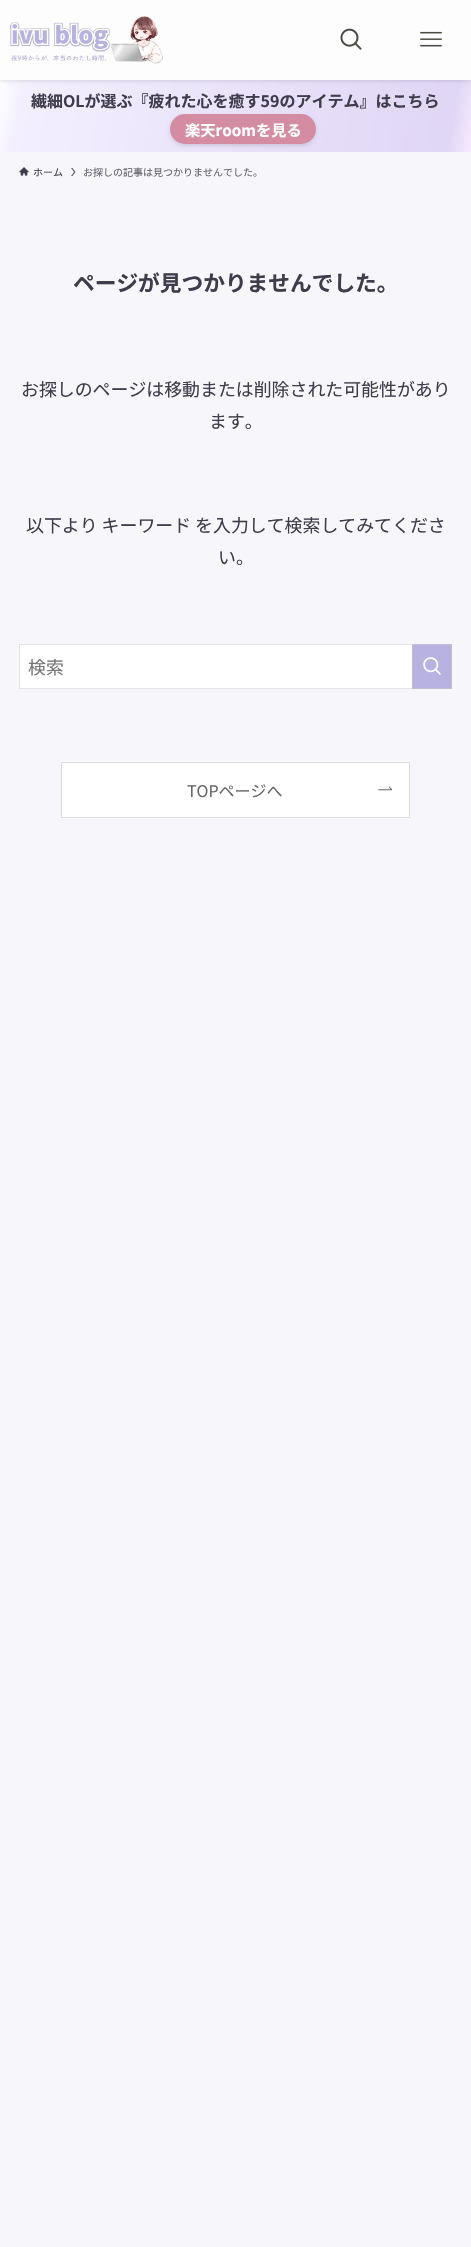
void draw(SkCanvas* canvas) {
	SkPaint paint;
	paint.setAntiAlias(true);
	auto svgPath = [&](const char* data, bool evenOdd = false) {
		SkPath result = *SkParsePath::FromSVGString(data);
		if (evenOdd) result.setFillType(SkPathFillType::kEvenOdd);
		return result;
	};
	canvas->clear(0xfff7f7fb);
	{
		const SkColor colors[] = {0xffffffff, 0xfff3efff, 0xffe0d6f5, 0xfff6ebff};
		const float stops[] = {0, 0.05, 0.95, 1};
		const SkPoint ends[] = {{0.9, 75}, {470, 157}};
		paint.setShader(SkGradientShader::MakeLinear(ends, colors, stops, 4, SkTileMode::kClamp));
		paint.setAlpha(255);
	}
	canvas->drawRect(SkRect::MakeXYWH(0, 80, 471, 72), paint);
	paint.setShader(nullptr);
	paint.setColor(0x1f000000);
	paint.setMaskFilter(SkMaskFilter::MakeBlur(kNormal_SkBlurStyle, 2));
	canvas->drawRect(SkRect::MakeXYWH(0, 1, 471, 80), paint);
	paint.setMaskFilter(nullptr);
	paint.setColor(0xfffdfdfd);
	canvas->drawRect(SkRect::MakeXYWH(0, 0, 471, 80), paint);
	canvas->drawImageRect(SkImages::DeferredFromEncodedData(SkData::MakeFromFileName("img1.png")), SkRect::MakeXYWH(9, 16, 155, 48), SkSamplingOptions());
	canvas->drawImageRect(SkImages::DeferredFromEncodedData(SkData::MakeFromFileName("img2.png")), SkRect::MakeXYWH(340, 28, 22, 22), SkSamplingOptions());
	canvas->drawImageRect(SkImages::DeferredFromEncodedData(SkData::MakeFromFileName("img3.png")), SkRect::MakeXYWH(420, 31, 22, 16), SkSamplingOptions());
	SkFont f1(fontMgr->matchFamilyStyle("Noto Sans JP", SkFontStyle::Bold()), 16);
	f1.setSubpixel(true);
	paint.setColor(0xff3f3d4c);
	canvas->drawString("繊細OLが選ぶ『疲れた心を癒す59のアイテム』はこちら", 31, 107, f1, paint);
	paint.setColor(0x1f000000);
	paint.setMaskFilter(SkMaskFilter::MakeBlur(kNormal_SkBlurStyle, 2));
	canvas->drawRoundRect(SkRect::MakeXYWH(170, 116, 146, 30), 15, 15, paint);
	paint.setMaskFilter(nullptr);
	paint.setColor(0xffd48ca2);
	canvas->drawRoundRect(SkRect::MakeXYWH(170, 114, 146, 30), 15, 15, paint);
	SkFont f2(fontMgr->matchFamilyStyle("Noto Sans JP", SkFontStyle::Bold()), 15.25);
	f2.setSubpixel(true);
	paint.setColor(0xffffffff);
	canvas->drawString("楽天roomを見る", 185, 136, f2, paint);
	canvas->drawImageRect(SkImages::DeferredFromEncodedData(SkData::MakeFromFileName("img4.png")), SkRect::MakeXYWH(19, 167, 10, 9), SkSamplingOptions());
	SkFont f3(fontMgr->matchFamilyStyle("Noto Sans JP", SkFontStyle::Normal()), 10);
	f3.setSubpixel(true);
	paint.setColor(0xff3f3d4c);
	canvas->drawString("ホーム", 33, 176, f3, paint);
	paint.setColor(0xff64626f);
	canvas->drawPath(svgPath("M72.5 168H71L74 172L71 176H72.5L75.5 172Z"), paint);
	canvas->drawString("お探しの記事は見つかりませんでした。", 83, 176, f3, paint);
	SkFont f4(fontMgr->matchFamilyStyle("Noto Sans JP", SkFontStyle::Bold()), 21.7);
	f4.setSubpixel(true);
	paint.setColor(0xff3f3d4c);
	canvas->drawString("ページが見つかりませんでした。", 73, 291, f4, paint);
	SkFont f5(fontMgr->matchFamilyStyle("Noto Sans JP", SkFontStyle::Normal()), 17.9);
	f5.setSubpixel(true);
	canvas->drawString("お探しのページは移動または削除された可能性があり", 21, 396, f5, paint);
	canvas->drawString("ます。", 209, 428, f5, paint);
	canvas->drawString("以下より キーワード を入力して検索してみてくださ", 26, 532, f5, paint);
	canvas->drawString("い。", 218, 564, f5, paint);
	paint.setColor(0xffffffff);
	canvas->drawRect(SkRect::MakeXYWH(20, 645, 392, 43), paint);
	paint.setStroke(true);
	paint.setStrokeWidth(1);
	paint.setColor(0xffe3e3e3);
	canvas->drawRect(SkRect::MakeXYWH(19.5, 644.5, 432, 44), paint);
	paint.setStroke(false);
	paint.setColor(0xff757575);
	canvas->drawString("検索", 28, 674, f5, paint);
	paint.setColor(0xffb8b2e0);
	canvas->drawRect(SkRect::MakeXYWH(412.5, 644.5, 39, 44), paint);
	paint.setStroke(true);
	paint.setColor(0xffc0bdd4);
	canvas->drawRect(SkRect::MakeXYWH(412.5, 644.5, 39, 44), paint);
	canvas->drawImageRect(SkImages::DeferredFromEncodedData(SkData::MakeFromFileName("img5.png")), SkRect::MakeXYWH(423, 657, 18, 18), SkSamplingOptions());
	paint.setColor(0xffdcdcdc);
	canvas->drawRect(SkRect::MakeXYWH(61.5, 762.5, 348, 55), paint);
	paint.setStroke(false);
	paint.setColor(0xffffffff);
	canvas->drawRect(SkRect::MakeXYWH(62, 763, 347, 54), paint);
	SkFont f6(fontMgr->matchFamilyStyle("Noto Sans JP", SkFontStyle::Normal()), 16);
	f6.setSubpixel(true);
	paint.setColor(0xff666666);
	canvas->drawString("TOPページへ", 187, 797, f6, paint);
	canvas->drawImageRect(SkImages::DeferredFromEncodedData(SkData::MakeFromFileName("img6.png")), SkRect::MakeXYWH(378, 786, 15, 5), SkSamplingOptions());
}
